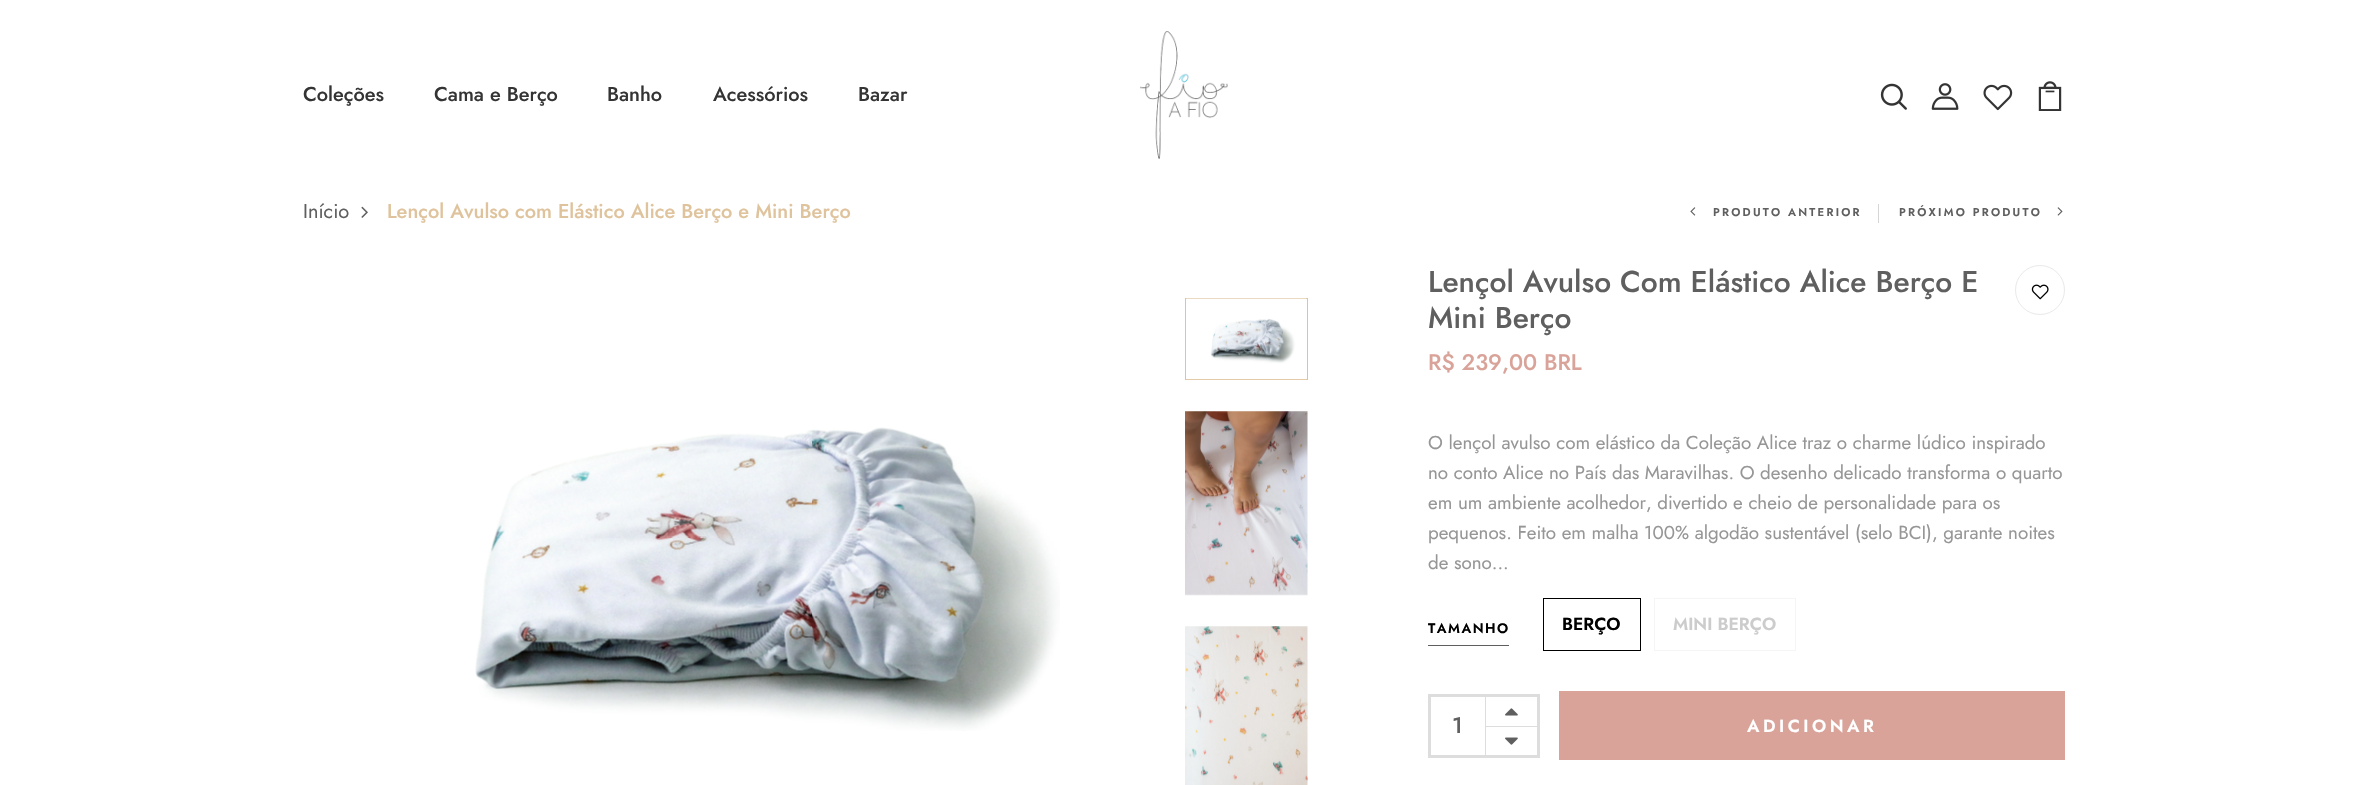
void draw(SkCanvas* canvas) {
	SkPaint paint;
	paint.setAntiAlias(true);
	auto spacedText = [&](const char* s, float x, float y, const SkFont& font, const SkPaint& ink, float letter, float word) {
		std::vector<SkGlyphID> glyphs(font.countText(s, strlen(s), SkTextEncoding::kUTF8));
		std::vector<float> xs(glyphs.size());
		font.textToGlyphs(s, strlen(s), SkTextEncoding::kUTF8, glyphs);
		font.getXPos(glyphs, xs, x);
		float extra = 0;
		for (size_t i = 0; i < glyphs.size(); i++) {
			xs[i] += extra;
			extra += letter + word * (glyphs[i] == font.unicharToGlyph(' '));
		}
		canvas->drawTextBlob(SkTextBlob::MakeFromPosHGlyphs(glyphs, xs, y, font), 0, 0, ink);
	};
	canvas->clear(0xffffffff);
	SkFont f1(fontMgr->matchFamilyStyle("Jost", SkFontStyle(500, SkFontStyle::kNormal_Width, SkFontStyle::kUpright_Slant)), 20);
	f1.setSubpixel(true);
	paint.setColor(0xff343434);
	canvas->drawString("Coleções", 303, 101, f1, paint);
	canvas->drawString("Cama e Berço", 434, 101, f1, paint);
	canvas->drawString("Banho", 607, 101, f1, paint);
	canvas->drawString("Acessórios", 713, 101, f1, paint);
	canvas->drawString("Bazar", 858, 101, f1, paint);
	canvas->drawImageRect(SkImages::DeferredFromEncodedData(SkData::MakeFromFileName("img1.png")), SkRect::MakeXYWH(1140, 31, 88, 128), SkSamplingOptions());
	canvas->drawImageRect(SkImages::DeferredFromEncodedData(SkData::MakeFromFileName("img2.png")), SkRect::MakeXYWH(1880, 83, 27, 27), SkSamplingOptions());
	canvas->drawImageRect(SkImages::DeferredFromEncodedData(SkData::MakeFromFileName("img3.png")), SkRect::MakeXYWH(1931, 83, 28, 27), SkSamplingOptions());
	canvas->drawImageRect(SkImages::DeferredFromEncodedData(SkData::MakeFromFileName("img4.png")), SkRect::MakeXYWH(1983, 84, 30, 27), SkSamplingOptions());
	canvas->drawImageRect(SkImages::DeferredFromEncodedData(SkData::MakeFromFileName("img5.png")), SkRect::MakeXYWH(2038, 81, 24, 30), SkSamplingOptions());
	SkFont f2(fontMgr->matchFamilyStyle("Jost", SkFontStyle::Normal()), 20);
	f2.setSubpixel(true);
	paint.setColor(0xff5f5f5f);
	canvas->drawString("Início", 303, 218, f2, paint);
	canvas->drawImageRect(SkImages::DeferredFromEncodedData(SkData::MakeFromFileName("img6.png")), SkRect::MakeXYWH(361, 206, 7, 12), SkSamplingOptions());
	paint.setColor(0xffdfc39c);
	canvas->drawString("Lençol Avulso com Elástico Alice Berço e Mini Berço", 387, 218, f1, paint);
	canvas->drawImageRect(SkImages::DeferredFromEncodedData(SkData::MakeFromFileName("img7.png")), SkRect::MakeXYWH(1690, 207, 6, 9), SkSamplingOptions());
	SkFont f3(fontMgr->matchFamilyStyle("Jost", SkFontStyle(600, SkFontStyle::kNormal_Width, SkFontStyle::kUpright_Slant)), 11.25);
	f3.setSubpixel(true);
	paint.setColor(0xff5f5f5f);
	spacedText("PRODUTO ANTERIOR", 1713, 216, f3, paint, 2.25, 0);
	paint.setColor(0xffd6d6d6);
	canvas->drawRect(SkRect::MakeXYWH(1878, 204, 1, 19), paint);
	paint.setColor(0xff5f5f5f);
	spacedText("PRÓXIMO PRODUTO", 1899, 216, f3, paint, 2.25, 0);
	canvas->drawImageRect(SkImages::DeferredFromEncodedData(SkData::MakeFromFileName("img8.png")), SkRect::MakeXYWH(2057, 207, 6, 9), SkSamplingOptions());
	canvas->drawImageRect(SkImages::DeferredFromEncodedData(SkData::MakeFromFileName("img9.png")), SkRect::MakeXYWH(475, 427, 585, 304), SkSamplingOptions());
	paint.setStroke(true);
	paint.setStrokeWidth(1);
	paint.setColor(0xffdfc39c);
	canvas->drawRect(SkRect::MakeXYWH(1185.5, 298.5, 122, 81), paint);
	canvas->drawImageRect(SkImages::DeferredFromEncodedData(SkData::MakeFromFileName("img10.png")), SkRect::MakeXYWH(1186, 298, 121, 82), SkSamplingOptions());
	canvas->drawImageRect(SkImages::DeferredFromEncodedData(SkData::MakeFromFileName("img11.png")), SkRect::MakeXYWH(1185, 411, 123, 185), SkSamplingOptions());
	canvas->drawImageRect(SkImages::DeferredFromEncodedData(SkData::MakeFromFileName("img12.png")), SkRect::MakeXYWH(1185, 626, 123, 159), SkSamplingOptions());
	SkFont f4(fontMgr->matchFamilyStyle("Jost", SkFontStyle(500, SkFontStyle::kNormal_Width, SkFontStyle::kUpright_Slant)), 30);
	f4.setSubpixel(true);
	paint.setStroke(false);
	paint.setColor(0xff5f5f5f);
	canvas->drawString("Lençol Avulso Com Elástico Alice Berço E", 1428, 292, f4, paint);
	canvas->drawString("Mini Berço", 1428, 328, f4, paint);
	paint.setStroke(true);
	paint.setColor(0xffe9e9e9);
	canvas->drawCircle(2040, 290, 24.5, paint);
	canvas->drawImageRect(SkImages::DeferredFromEncodedData(SkData::MakeFromFileName("img13.png")), SkRect::MakeXYWH(2031, 284, 18, 16), SkSamplingOptions());
	SkFont f5(fontMgr->matchFamilyStyle("Jost", SkFontStyle(500, SkFontStyle::kNormal_Width, SkFontStyle::kUpright_Slant)), 22.5);
	f5.setSubpixel(true);
	paint.setStroke(false);
	paint.setColor(0xffd9a399);
	canvas->drawString("R$ 239,00 BRL", 1428, 370, f5, paint);
	SkFont f6(fontMgr->matchFamilyStyle("Jost", SkFontStyle::Normal()), 18.75);
	f6.setSubpixel(true);
	paint.setColor(0xff969696);
	canvas->drawString("O lençol avulso com elástico da Coleção Alice traz o charme lúdico inspirado", 1428, 449, f6, paint);
	canvas->drawString("no conto Alice no País das Maravilhas. O desenho delicado transforma o quarto", 1428, 479, f6, paint);
	canvas->drawString("em um ambiente acolhedor, divertido e cheio de personalidade para os", 1428, 509, f6, paint);
	canvas->drawString("pequenos. Feito em malha 100% algodão sustentável (selo BCI), garante noites", 1428, 539, f6, paint);
	canvas->drawString("de sono...", 1428, 569, f6, paint);
	paint.setColor(0xff5f5f5f);
	canvas->drawRect(SkRect::MakeXYWH(1428, 645, 81, 1), paint);
	SkFont f7(fontMgr->matchFamilyStyle("Jost", SkFontStyle(600, SkFontStyle::kNormal_Width, SkFontStyle::kUpright_Slant)), 13.75);
	f7.setSubpixel(true);
	paint.setColor(0xff000000);
	spacedText("TAMANHO", 1428, 633, f7, paint, 1.5, 0);
	paint.setStroke(true);
	canvas->drawRect(SkRect::MakeXYWH(1543.5, 598.5, 97, 52), paint);
	SkFont f8(fontMgr->matchFamilyStyle("Jost", SkFontStyle(600, SkFontStyle::kNormal_Width, SkFontStyle::kUpright_Slant)), 17.5);
	f8.setSubpixel(true);
	paint.setStroke(false);
	canvas->drawString("BERÇO", 1562, 630, f8, paint);
	paint.setStroke(true);
	paint.setColor(0xfff5f5f5);
	canvas->drawRect(SkRect::MakeXYWH(1654.5, 598.5, 141, 52), paint);
	paint.setStroke(false);
	paint.setColor(0xffcccccc);
	canvas->drawString("MINI BERÇO", 1673, 630, f8, paint);
	paint.setStroke(true);
	paint.setStrokeWidth(3);
	paint.setColor(0xffdddddd);
	canvas->drawRect(SkRect::MakeXYWH(1429.5, 695.5, 109, 61), paint);
	canvas->drawImageRect(SkImages::DeferredFromEncodedData(SkData::MakeFromFileName("img14.png")), SkRect::MakeXYWH(1505, 708, 13, 8), SkSamplingOptions());
	paint.setStroke(false);
	canvas->drawRect(SkRect::MakeXYWH(1485, 696, 1, 59), paint);
	paint.setColor(0xff5f5f5f);
	canvas->drawString("1", 1452, 733, f5, paint);
	paint.setColor(0xffdddddd);
	canvas->drawRect(SkRect::MakeXYWH(1485, 726, 53, 1), paint);
	canvas->drawImageRect(SkImages::DeferredFromEncodedData(SkData::MakeFromFileName("img15.png")), SkRect::MakeXYWH(1505, 737, 13, 8), SkSamplingOptions());
	paint.setColor(0xffd9a399);
	canvas->drawRect(SkRect::MakeXYWH(1559, 691, 506, 69), paint);
	paint.setColor(0xffffffff);
	spacedText("ADICIONAR", 1747, 732, f8, paint, 3.5, 0);
}
